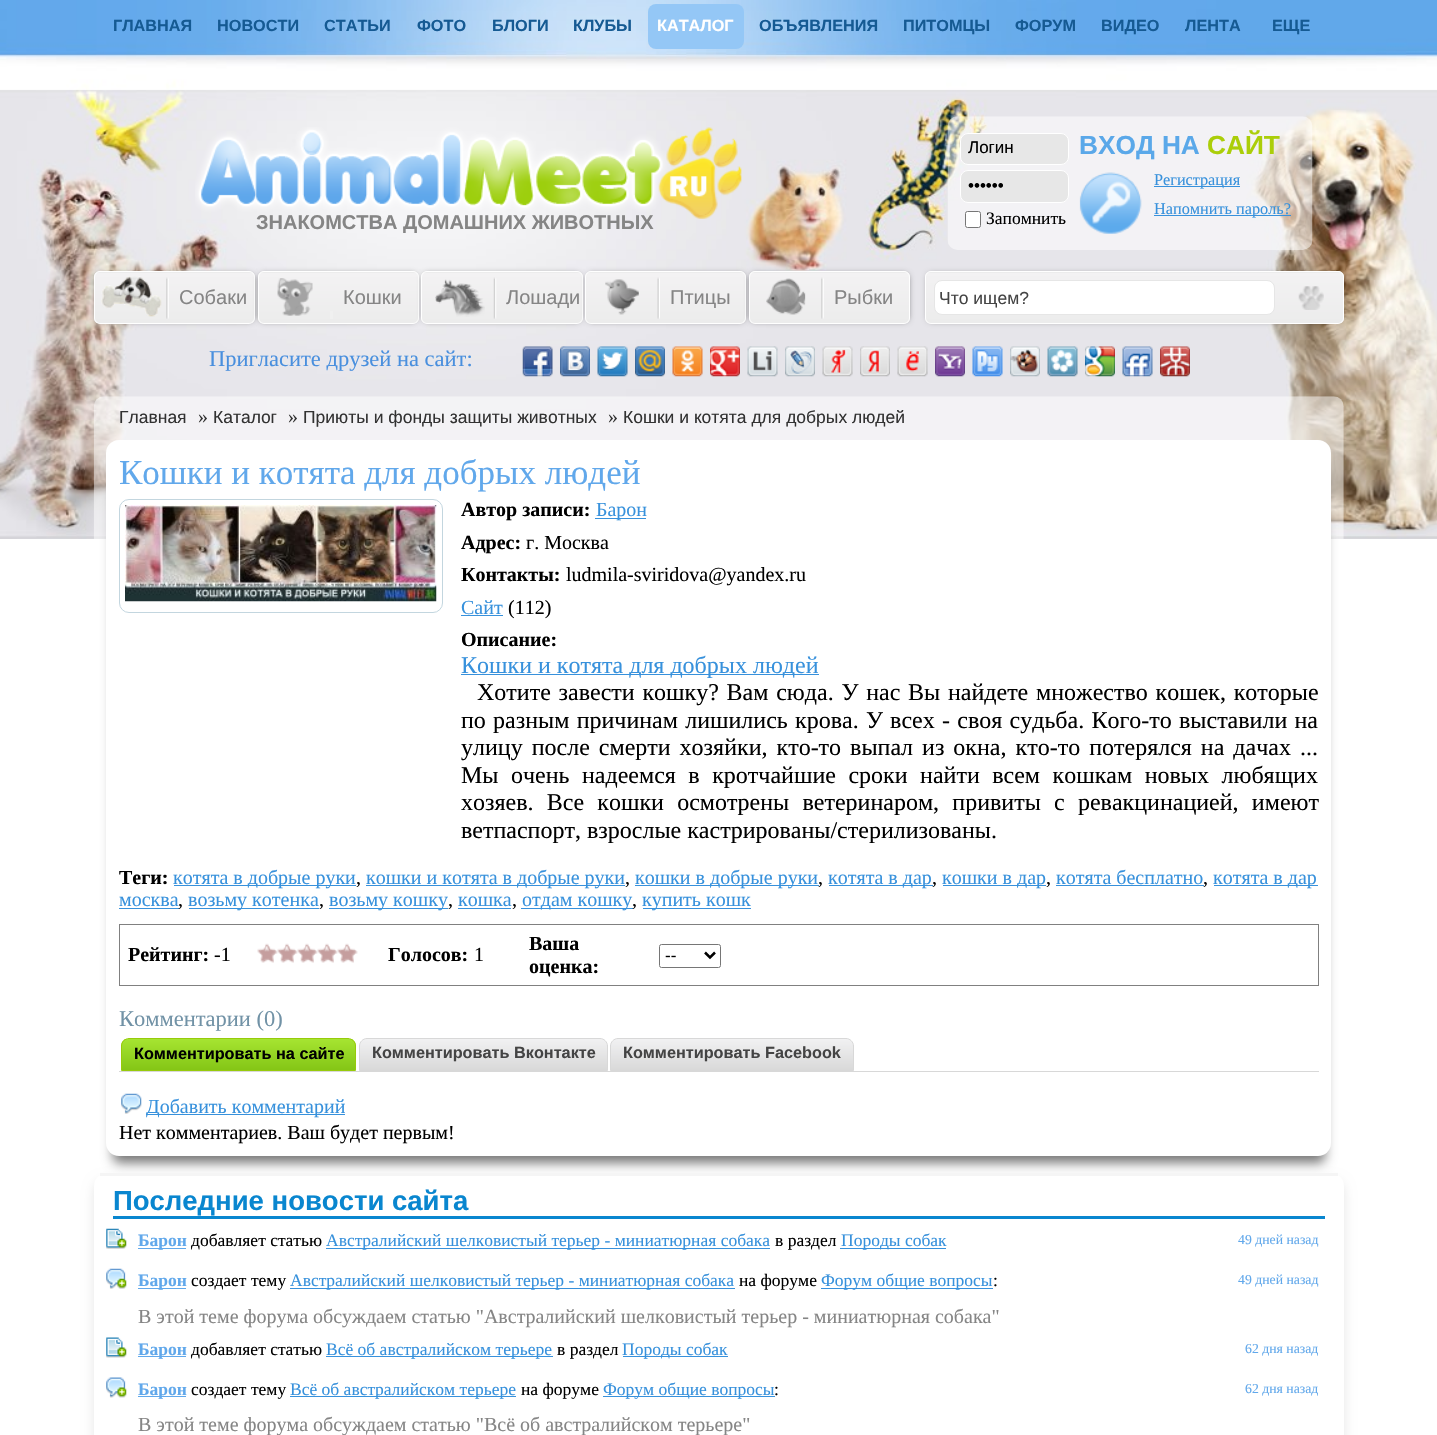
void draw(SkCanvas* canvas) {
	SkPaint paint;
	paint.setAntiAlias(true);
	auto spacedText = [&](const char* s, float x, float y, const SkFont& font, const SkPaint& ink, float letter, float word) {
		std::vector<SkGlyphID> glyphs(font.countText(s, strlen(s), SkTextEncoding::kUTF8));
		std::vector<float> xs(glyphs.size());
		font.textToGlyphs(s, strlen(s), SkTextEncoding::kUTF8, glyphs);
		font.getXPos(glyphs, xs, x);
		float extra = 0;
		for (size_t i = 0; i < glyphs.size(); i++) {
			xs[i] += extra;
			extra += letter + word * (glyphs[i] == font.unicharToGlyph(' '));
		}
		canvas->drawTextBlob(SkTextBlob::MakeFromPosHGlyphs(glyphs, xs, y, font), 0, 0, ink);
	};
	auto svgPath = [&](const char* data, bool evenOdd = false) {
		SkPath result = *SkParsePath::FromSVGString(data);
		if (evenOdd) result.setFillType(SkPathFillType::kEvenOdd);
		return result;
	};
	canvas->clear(0xffffffff);
	canvas->drawImageRect(SkImages::DeferredFromEncodedData(SkData::MakeFromFileName("img1.png")), SkRect::MakeXYWH(0, 538, 1437, 1), SkSamplingOptions());
	canvas->drawImageRect(SkImages::DeferredFromEncodedData(SkData::MakeFromFileName("img2.png")), SkRect::MakeXYWH(0, 54, 1437, 485), SkSamplingOptions());
	canvas->drawImageRect(SkImages::DeferredFromEncodedData(SkData::MakeFromFileName("img3.png")), SkRect::MakeXYWH(0, 0, 1437, 54), SkSamplingOptions());
	SkFont f1(fontMgr->matchFamilyStyle("Liberation Sans", SkFontStyle::Bold()), 16.25);
	f1.setSubpixel(true);
	paint.setColor(0xff155a93);
	canvas->drawString("ГЛАВНАЯ", 113, 31, f1, paint);
	canvas->drawString("НОВОСТИ", 217, 31, f1, paint);
	canvas->drawString("СТАТЬИ", 324, 31, f1, paint);
	canvas->drawString("ФОТО", 417, 31, f1, paint);
	canvas->drawString("БЛОГИ", 492, 31, f1, paint);
	canvas->drawString("КЛУБЫ", 573, 31, f1, paint);
	paint.setColor(0xff94c7f6);
	canvas->drawRoundRect(SkRect::MakeXYWH(648, 4, 96, 45), 8, 8, paint);
	paint.setColor(0xffffffff);
	canvas->drawString("КАТАЛОГ", 657, 31, f1, paint);
	paint.setColor(0xff155a93);
	canvas->drawString("ОБЪЯВЛЕНИЯ", 759, 31, f1, paint);
	canvas->drawString("ПИТОМЦЫ", 903, 31, f1, paint);
	canvas->drawString("ФОРУМ", 1015, 31, f1, paint);
	canvas->drawString("ВИДЕО", 1101, 31, f1, paint);
	canvas->drawString("ЛЕНТА", 1185, 31, f1, paint);
	canvas->drawString("ЕЩЕ", 1272, 31, f1, paint);
	canvas->drawImageRect(SkImages::DeferredFromEncodedData(SkData::MakeFromFileName("img4.png")), SkRect::MakeXYWH(195, 127, 547, 92), SkSamplingOptions());
	SkFont f2(fontMgr->matchFamilyStyle("Liberation Sans", SkFontStyle::Bold()), 20);
	f2.setSubpixel(true);
	paint.setColor(0xff858585);
	canvas->drawString("ЗНАКОМСТВА ДОМАШНИХ ЖИВОТНЫХ", 256, 229, f2, paint);
	canvas->drawImageRect(SkImages::DeferredFromEncodedData(SkData::MakeFromFileName("img5.png")), SkRect::MakeXYWH(947, 116, 366, 134), SkSamplingOptions());
	paint.setColor(0xffe7e7e7);
	canvas->drawRoundRect(SkRect::MakeXYWH(960.5, 133.5, 108, 31), 7.5, 7.5, paint);
	paint.setStroke(true);
	paint.setStrokeWidth(1);
	paint.setColor(0xffffffff);
	canvas->drawRoundRect(SkRect::MakeXYWH(960.5, 133.5, 108, 31), 7.5, 7.5, paint);
	SkFont f3(fontMgr->matchFamilyStyle("Liberation Sans", SkFontStyle::Normal()), 17);
	f3.setSubpixel(true);
	paint.setStroke(false);
	paint.setColor(0xff000000);
	canvas->drawString("Логин", 968, 153, f3, paint);
	paint.setColor(0xffe7e7e7);
	canvas->drawRoundRect(SkRect::MakeXYWH(960.5, 170.5, 108, 32), 7.5, 7.5, paint);
	paint.setStroke(true);
	paint.setColor(0xffffffff);
	canvas->drawRoundRect(SkRect::MakeXYWH(960.5, 170.5, 108, 32), 7.5, 7.5, paint);
	paint.setStroke(false);
	paint.setColor(0xff000000);
	canvas->drawString("••••••", 968, 191, f3, paint);
	paint.setColor(0xffffffff);
	canvas->drawRoundRect(SkRect::MakeXYWH(965.5, 211.5, 15, 16), 2, 2, paint);
	paint.setStroke(true);
	paint.setColor(0xff767676);
	canvas->drawRoundRect(SkRect::MakeXYWH(965.5, 211.5, 15, 16), 2, 2, paint);
	SkFont f4(fontMgr->matchFamilyStyle("Liberation Serif", SkFontStyle::Normal()), 17.5);
	f4.setSubpixel(true);
	paint.setStroke(false);
	paint.setColor(0xff000000);
	canvas->drawString("Запомнить", 986, 224, f4, paint);
	SkFont f5(fontMgr->matchFamilyStyle("Liberation Sans", SkFontStyle::Bold()), 26.25);
	f5.setSubpixel(true);
	paint.setColor(0xff5aa8e9);
	canvas->drawString("ВХОД НА", 1079, 154, f5, paint);
	paint.setColor(0xffabce09);
	canvas->drawString("САЙТ", 1207, 154, f5, paint);
	canvas->drawImageRect(SkImages::DeferredFromEncodedData(SkData::MakeFromFileName("img6.png")), SkRect::MakeXYWH(1079, 172, 63, 62), SkSamplingOptions());
	paint.setColor(0xff3791dc);
	canvas->drawRect(SkRect::MakeXYWH(1154, 186, 86, 1), paint);
	SkFont f6(fontMgr->matchFamilyStyle("Liberation Serif", SkFontStyle::Normal()), 16.25);
	f6.setSubpixel(true);
	canvas->drawString("Регистрация", 1154, 185, f6, paint);
	canvas->drawRect(SkRect::MakeXYWH(1154, 215, 137, 1), paint);
	canvas->drawString("Напомнить пароль?", 1154, 214, f6, paint);
	paint.setColor(0x99000000);
	paint.setMaskFilter(SkMaskFilter::MakeBlur(kNormal_SkBlurStyle, 3));
	canvas->drawRoundRect(SkRect::MakeXYWH(96, 274, 157, 47), 4, 4, paint);
	paint.setMaskFilter(nullptr);
	canvas->save();
	canvas->clipPath(svgPath("M100 271H249C252.5 271 255 273.5 255 277V318C255 321.5 252.5 324 249 324H100C96.5 324 94 321.5 94 318V277C94 273.5 96.5 271 100 271Z"), true);
	{
		const SkColor colors[] = {0xfff3f2f3, 0xffececec};
		const float stops[] = {0, 1};
		const SkPoint ends[] = {{174, 223}, {174, 273}};
		paint.setShader(SkGradientShader::MakeLinear(ends, colors, stops, 2, SkTileMode::kClamp));
		paint.setAlpha(255);
	}
	canvas->drawRect(SkRect::MakeXYWH(94, 271, 161, 2), paint);
	{
		const SkColor colors[] = {0xfff3f2f3, 0xffececec};
		const float stops[] = {0, 1};
		const SkPoint ends[] = {{174, 273}, {174, 323}};
		paint.setShader(SkGradientShader::MakeLinear(ends, colors, stops, 2, SkTileMode::kClamp));
		paint.setAlpha(255);
	}
	canvas->drawRect(SkRect::MakeXYWH(94, 273, 161, 50), paint);
	canvas->restore();
	paint.setStroke(true);
	paint.setShader(nullptr);
	paint.setColor(0xffffffff);
	canvas->drawRoundRect(SkRect::MakeXYWH(94.5, 271.5, 160, 52), 5.5, 5.5, paint);
	canvas->drawImageRect(SkImages::DeferredFromEncodedData(SkData::MakeFromFileName("img7.png")), SkRect::MakeXYWH(101, 276, 61, 41), SkSamplingOptions());
	canvas->drawImageRect(SkImages::DeferredFromEncodedData(SkData::MakeFromFileName("img8.png")), SkRect::MakeXYWH(166, 277, 3, 42), SkSamplingOptions());
	SkFont f7(fontMgr->matchFamilyStyle("Liberation Sans", SkFontStyle::Normal()), 20);
	f7.setSubpixel(true);
	paint.setStroke(false);
	paint.setColor(0xff858585);
	canvas->drawString("Собаки", 179, 304, f7, paint);
	paint.setColor(0x99000000);
	paint.setMaskFilter(SkMaskFilter::MakeBlur(kNormal_SkBlurStyle, 3));
	canvas->drawRoundRect(SkRect::MakeXYWH(260, 274, 156, 47), 4, 4, paint);
	paint.setMaskFilter(nullptr);
	canvas->save();
	canvas->clipPath(svgPath("M264 271H413C416.5 271 419 273.5 419 277V318C419 321.5 416.5 324 413 324H264C260.5 324 258 321.5 258 318V277C258 273.5 260.5 271 264 271Z"), true);
	{
		const SkColor colors[] = {0xfff3f2f3, 0xffececec};
		const float stops[] = {0, 1};
		const SkPoint ends[] = {{338, 223}, {338, 273}};
		paint.setShader(SkGradientShader::MakeLinear(ends, colors, stops, 2, SkTileMode::kClamp));
		paint.setAlpha(255);
	}
	canvas->drawRect(SkRect::MakeXYWH(258, 271, 161, 2), paint);
	{
		const SkColor colors[] = {0xfff3f2f3, 0xffececec};
		const float stops[] = {0, 1};
		const SkPoint ends[] = {{338, 273}, {338, 323}};
		paint.setShader(SkGradientShader::MakeLinear(ends, colors, stops, 2, SkTileMode::kClamp));
		paint.setAlpha(255);
	}
	canvas->drawRect(SkRect::MakeXYWH(258, 273, 161, 50), paint);
	canvas->restore();
	paint.setStroke(true);
	paint.setShader(nullptr);
	paint.setColor(0xffffffff);
	canvas->drawRoundRect(SkRect::MakeXYWH(258.5, 271.5, 160, 52), 5.5, 5.5, paint);
	canvas->drawImageRect(SkImages::DeferredFromEncodedData(SkData::MakeFromFileName("img9.png")), SkRect::MakeXYWH(277, 278, 36, 38), SkSamplingOptions());
	paint.setStroke(false);
	paint.setColor(0xfff0f0f0);
	canvas->drawRect(SkRect::MakeXYWH(330, 311, 3, 8), paint);
	paint.setColor(0xff858585);
	canvas->drawString("Кошки", 343, 304, f7, paint);
	paint.setColor(0x99000000);
	paint.setMaskFilter(SkMaskFilter::MakeBlur(kNormal_SkBlurStyle, 3));
	canvas->drawRoundRect(SkRect::MakeXYWH(424, 274, 156, 47), 4, 4, paint);
	paint.setMaskFilter(nullptr);
	canvas->save();
	canvas->clipPath(svgPath("M427 271H577C580.5 271 583 273.5 583 277V318C583 321.5 580.5 324 577 324H427C423.5 324 421 321.5 421 318V277C421 273.5 423.5 271 427 271Z"), true);
	{
		const SkColor colors[] = {0xfff3f2f3, 0xffececec};
		const float stops[] = {0, 1};
		const SkPoint ends[] = {{502, 223}, {502, 273}};
		paint.setShader(SkGradientShader::MakeLinear(ends, colors, stops, 2, SkTileMode::kClamp));
		paint.setAlpha(255);
	}
	canvas->drawRect(SkRect::MakeXYWH(421, 271, 162, 2), paint);
	{
		const SkColor colors[] = {0xfff3f2f3, 0xffececec};
		const float stops[] = {0, 1};
		const SkPoint ends[] = {{502, 273}, {502, 323}};
		paint.setShader(SkGradientShader::MakeLinear(ends, colors, stops, 2, SkTileMode::kClamp));
		paint.setAlpha(255);
	}
	canvas->drawRect(SkRect::MakeXYWH(421, 273, 162, 50), paint);
	canvas->restore();
	paint.setStroke(true);
	paint.setShader(nullptr);
	paint.setColor(0xffffffff);
	canvas->drawRoundRect(SkRect::MakeXYWH(421.5, 271.5, 161, 52), 5.5, 5.5, paint);
	canvas->drawImageRect(SkImages::DeferredFromEncodedData(SkData::MakeFromFileName("img10.png")), SkRect::MakeXYWH(435, 279, 50, 38), SkSamplingOptions());
	canvas->drawImageRect(SkImages::DeferredFromEncodedData(SkData::MakeFromFileName("img11.png")), SkRect::MakeXYWH(493, 277, 4, 42), SkSamplingOptions());
	paint.setStroke(false);
	paint.setColor(0xff858585);
	canvas->drawString("Лошади", 506, 304, f7, paint);
	paint.setColor(0x99000000);
	paint.setMaskFilter(SkMaskFilter::MakeBlur(kNormal_SkBlurStyle, 3));
	canvas->drawRoundRect(SkRect::MakeXYWH(588, 274, 156, 47), 4, 4, paint);
	paint.setMaskFilter(nullptr);
	canvas->save();
	canvas->clipPath(svgPath("M591 271H740C743.5 271 746 273.5 746 277V318C746 321.5 743.5 324 740 324H591C587.5 324 585 321.5 585 318V277C585 273.5 587.5 271 591 271Z"), true);
	{
		const SkColor colors[] = {0xfff3f2f3, 0xffececec};
		const float stops[] = {0, 1};
		const SkPoint ends[] = {{666, 223}, {666, 273}};
		paint.setShader(SkGradientShader::MakeLinear(ends, colors, stops, 2, SkTileMode::kClamp));
		paint.setAlpha(255);
	}
	canvas->drawRect(SkRect::MakeXYWH(585, 271, 161, 2), paint);
	{
		const SkColor colors[] = {0xfff3f2f3, 0xffececec};
		const float stops[] = {0, 1};
		const SkPoint ends[] = {{666, 273}, {666, 323}};
		paint.setShader(SkGradientShader::MakeLinear(ends, colors, stops, 2, SkTileMode::kClamp));
		paint.setAlpha(255);
	}
	canvas->drawRect(SkRect::MakeXYWH(585, 273, 161, 50), paint);
	canvas->restore();
	paint.setStroke(true);
	paint.setShader(nullptr);
	paint.setColor(0xffffffff);
	canvas->drawRoundRect(SkRect::MakeXYWH(585.5, 271.5, 160, 52), 5.5, 5.5, paint);
	canvas->drawImageRect(SkImages::DeferredFromEncodedData(SkData::MakeFromFileName("img12.png")), SkRect::MakeXYWH(605, 279, 34, 36), SkSamplingOptions());
	canvas->drawImageRect(SkImages::DeferredFromEncodedData(SkData::MakeFromFileName("img13.png")), SkRect::MakeXYWH(657, 277, 3, 42), SkSamplingOptions());
	paint.setStroke(false);
	paint.setColor(0xff858585);
	canvas->drawString("Птицы", 670, 304, f7, paint);
	paint.setColor(0x99000000);
	paint.setMaskFilter(SkMaskFilter::MakeBlur(kNormal_SkBlurStyle, 3));
	canvas->drawRoundRect(SkRect::MakeXYWH(751, 274, 157, 47), 4, 4, paint);
	paint.setMaskFilter(nullptr);
	canvas->save();
	canvas->clipPath(svgPath("M755 271H904C907.5 271 910 273.5 910 277V318C910 321.5 907.5 324 904 324H755C751.5 324 749 321.5 749 318V277C749 273.5 751.5 271 755 271Z"), true);
	{
		const SkColor colors[] = {0xfff3f2f3, 0xffececec};
		const float stops[] = {0, 1};
		const SkPoint ends[] = {{829, 223}, {829, 273}};
		paint.setShader(SkGradientShader::MakeLinear(ends, colors, stops, 2, SkTileMode::kClamp));
		paint.setAlpha(255);
	}
	canvas->drawRect(SkRect::MakeXYWH(749, 271, 161, 2), paint);
	{
		const SkColor colors[] = {0xfff3f2f3, 0xffececec};
		const float stops[] = {0, 1};
		const SkPoint ends[] = {{829, 273}, {829, 323}};
		paint.setShader(SkGradientShader::MakeLinear(ends, colors, stops, 2, SkTileMode::kClamp));
		paint.setAlpha(255);
	}
	canvas->drawRect(SkRect::MakeXYWH(749, 273, 161, 50), paint);
	canvas->restore();
	paint.setStroke(true);
	paint.setShader(nullptr);
	paint.setColor(0xffffffff);
	canvas->drawRoundRect(SkRect::MakeXYWH(749.5, 271.5, 160, 52), 5.5, 5.5, paint);
	canvas->drawImageRect(SkImages::DeferredFromEncodedData(SkData::MakeFromFileName("img14.png")), SkRect::MakeXYWH(766, 278, 40, 37), SkSamplingOptions());
	canvas->drawImageRect(SkImages::DeferredFromEncodedData(SkData::MakeFromFileName("img8.png")), SkRect::MakeXYWH(821, 277, 3, 42), SkSamplingOptions());
	paint.setStroke(false);
	paint.setColor(0xff858585);
	canvas->drawString("Рыбки", 834, 304, f7, paint);
	paint.setColor(0x80000000);
	paint.setMaskFilter(SkMaskFilter::MakeBlur(kNormal_SkBlurStyle, 3));
	canvas->drawRoundRect(SkRect::MakeXYWH(928, 274, 413, 47), 4, 4, paint);
	paint.setMaskFilter(nullptr);
	canvas->save();
	canvas->clipPath(svgPath("M931 271H1338C1341.5 271 1344 273.5 1344 277V318C1344 321.5 1341.5 324 1338 324H931C927.5 324 925 321.5 925 318V277C925 273.5 927.5 271 931 271Z"), true);
	{
		const SkColor colors[] = {0xfff3f2f3, 0xffececec};
		const float stops[] = {0, 1};
		const SkPoint ends[] = {{1134, 222}, {1134, 273}};
		paint.setShader(SkGradientShader::MakeLinear(ends, colors, stops, 2, SkTileMode::kClamp));
		paint.setAlpha(255);
	}
	canvas->drawRect(SkRect::MakeXYWH(925, 271, 419, 2), paint);
	{
		const SkColor colors[] = {0xfff3f2f3, 0xffececec};
		const float stops[] = {0, 1};
		const SkPoint ends[] = {{1134, 272}, {1134, 323}};
		paint.setShader(SkGradientShader::MakeLinear(ends, colors, stops, 2, SkTileMode::kClamp));
		paint.setAlpha(255);
	}
	canvas->drawRect(SkRect::MakeXYWH(925, 273, 419, 50), paint);
	canvas->restore();
	paint.setStroke(true);
	paint.setShader(nullptr);
	paint.setColor(0xffffffff);
	canvas->drawRoundRect(SkRect::MakeXYWH(925.5, 271.5, 418, 52), 5.5, 5.5, paint);
	paint.setStroke(false);
	canvas->drawRoundRect(SkRect::MakeXYWH(934.5, 280.5, 340, 34), 7.5, 7.5, paint);
	paint.setStroke(true);
	paint.setColor(0xffe6e6e6);
	canvas->drawRoundRect(SkRect::MakeXYWH(934.5, 280.5, 340, 34), 7.5, 7.5, paint);
	SkFont f8(fontMgr->matchFamilyStyle("Liberation Sans", SkFontStyle::Normal()), 17.5);
	f8.setSubpixel(true);
	paint.setStroke(false);
	paint.setColor(0xff444444);
	canvas->drawString("Что ищем?", 939, 304, f8, paint);
	canvas->drawImageRect(SkImages::DeferredFromEncodedData(SkData::MakeFromFileName("img15.png")), SkRect::MakeXYWH(1298, 286, 26, 24), SkSamplingOptions());
	SkFont f9(fontMgr->matchFamilyStyle("Liberation Serif", SkFontStyle::Normal()), 22.5);
	f9.setSubpixel(true);
	paint.setColor(0xff498fde);
	canvas->drawString("Пригласите друзей на сайт:", 209, 366, f9, paint);
	canvas->drawImageRect(SkImages::DeferredFromEncodedData(SkData::MakeFromFileName("img16.png")), SkRect::MakeXYWH(522, 346, 31, 31), SkSamplingOptions());
	canvas->drawImageRect(SkImages::DeferredFromEncodedData(SkData::MakeFromFileName("img17.png")), SkRect::MakeXYWH(560, 346, 30, 31), SkSamplingOptions());
	canvas->drawImageRect(SkImages::DeferredFromEncodedData(SkData::MakeFromFileName("img18.png")), SkRect::MakeXYWH(597, 346, 31, 31), SkSamplingOptions());
	canvas->drawImageRect(SkImages::DeferredFromEncodedData(SkData::MakeFromFileName("img19.png")), SkRect::MakeXYWH(635, 346, 30, 31), SkSamplingOptions());
	canvas->drawImageRect(SkImages::DeferredFromEncodedData(SkData::MakeFromFileName("img20.png")), SkRect::MakeXYWH(672, 346, 31, 31), SkSamplingOptions());
	canvas->drawImageRect(SkImages::DeferredFromEncodedData(SkData::MakeFromFileName("img21.png")), SkRect::MakeXYWH(710, 346, 30, 31), SkSamplingOptions());
	canvas->drawImageRect(SkImages::DeferredFromEncodedData(SkData::MakeFromFileName("img22.png")), SkRect::MakeXYWH(747, 346, 31, 31), SkSamplingOptions());
	canvas->drawImageRect(SkImages::DeferredFromEncodedData(SkData::MakeFromFileName("img23.png")), SkRect::MakeXYWH(785, 346, 30, 31), SkSamplingOptions());
	canvas->drawImageRect(SkImages::DeferredFromEncodedData(SkData::MakeFromFileName("img24.png")), SkRect::MakeXYWH(822, 346, 31, 31), SkSamplingOptions());
	canvas->drawImageRect(SkImages::DeferredFromEncodedData(SkData::MakeFromFileName("img25.png")), SkRect::MakeXYWH(860, 346, 30, 31), SkSamplingOptions());
	canvas->drawImageRect(SkImages::DeferredFromEncodedData(SkData::MakeFromFileName("img26.png")), SkRect::MakeXYWH(897, 346, 31, 31), SkSamplingOptions());
	canvas->drawImageRect(SkImages::DeferredFromEncodedData(SkData::MakeFromFileName("img27.png")), SkRect::MakeXYWH(935, 346, 30, 31), SkSamplingOptions());
	canvas->drawImageRect(SkImages::DeferredFromEncodedData(SkData::MakeFromFileName("img28.png")), SkRect::MakeXYWH(972, 346, 31, 31), SkSamplingOptions());
	canvas->drawImageRect(SkImages::DeferredFromEncodedData(SkData::MakeFromFileName("img29.png")), SkRect::MakeXYWH(1010, 346, 30, 31), SkSamplingOptions());
	canvas->drawImageRect(SkImages::DeferredFromEncodedData(SkData::MakeFromFileName("img30.png")), SkRect::MakeXYWH(1047, 346, 31, 31), SkSamplingOptions());
	canvas->drawImageRect(SkImages::DeferredFromEncodedData(SkData::MakeFromFileName("img31.png")), SkRect::MakeXYWH(1085, 346, 30, 31), SkSamplingOptions());
	canvas->drawImageRect(SkImages::DeferredFromEncodedData(SkData::MakeFromFileName("img32.png")), SkRect::MakeXYWH(1122, 346, 31, 31), SkSamplingOptions());
	canvas->drawImageRect(SkImages::DeferredFromEncodedData(SkData::MakeFromFileName("img33.png")), SkRect::MakeXYWH(1160, 346, 30, 31), SkSamplingOptions());
	canvas->drawImageRect(SkImages::DeferredFromEncodedData(SkData::MakeFromFileName("img34.png")), SkRect::MakeXYWH(93, 396, 1251, 143), SkSamplingOptions());
	paint.setColor(0xff323232);
	canvas->drawString("Главная", 119, 423, f8, paint);
	SkFont f10(fontMgr->matchFamilyStyle("Liberation Serif", SkFontStyle::Normal()), 20);
	f10.setSubpixel(true);
	canvas->drawString("»", 198, 423, f10, paint);
	canvas->drawString("Каталог", 213, 423, f8, paint);
	canvas->drawString("»", 288, 423, f10, paint);
	canvas->drawString("Приюты и фонды защиты животных", 303, 423, f8, paint);
	canvas->drawString("»", 608, 423, f10, paint);
	canvas->drawString("Кошки и котята для добрых людей", 623, 423, f8, paint);
	paint.setColor(0xff777777);
	paint.setMaskFilter(SkMaskFilter::MakeBlur(kNormal_SkBlurStyle, 6));
	canvas->drawRoundRect(SkRect::MakeXYWH(113, 459, 1212, 704), 6, 6, paint);
	paint.setMaskFilter(nullptr);
	paint.setColor(0xffffffff);
	canvas->drawRoundRect(SkRect::MakeXYWH(106, 440, 1225, 716), 13, 13, paint);
	SkFont f11(fontMgr->matchFamilyStyle("Liberation Serif", SkFontStyle::Normal()), 35);
	f11.setSubpixel(true);
	paint.setColor(0xff61a8eb);
	canvas->drawString("Кошки и котята для добрых людей", 119, 484, f11, paint);
	paint.setStroke(true);
	paint.setColor(0xffc3d6df);
	canvas->drawRoundRect(SkRect::MakeXYWH(119.5, 499.5, 323, 113), 9.5, 9.5, paint);
	canvas->drawImageRect(SkImages::DeferredFromEncodedData(SkData::MakeFromFileName("img35.png")), SkRect::MakeXYWH(125, 505, 312, 97), SkSamplingOptions());
	SkFont f12(fontMgr->matchFamilyStyle("Liberation Serif", SkFontStyle::Bold()), 20);
	f12.setSubpixel(true);
	paint.setStroke(false);
	paint.setColor(0xff000000);
	canvas->drawString("Автор записи:", 461, 516, f12, paint);
	paint.setColor(0xff3791dc);
	canvas->drawRect(SkRect::MakeXYWH(595, 518, 51, 1), paint);
	canvas->drawString("Барон", 596, 516, f10, paint);
	paint.setColor(0xff000000);
	canvas->drawString("Адрес:", 461, 549, f12, paint);
	canvas->drawString("г. Москва", 526, 549, f10, paint);
	canvas->drawString("Контакты:", 461, 581, f12, paint);
	canvas->drawString("ludmila-sviridova@yandex.ru", 566, 581, f10, paint);
	paint.setColor(0xff3791dc);
	canvas->drawString("Сайт", 461, 614, f10, paint);
	canvas->drawRect(SkRect::MakeXYWH(461, 615, 42, 1), paint);
	paint.setColor(0xff000000);
	canvas->drawString("(112)", 508, 614, f10, paint);
	canvas->drawString("Описание:", 461, 646, f12, paint);
	paint.setColor(0xff3791dc);
	canvas->drawRect(SkRect::MakeXYWH(461, 674, 358, 1), paint);
	SkFont f13(fontMgr->matchFamilyStyle("Liberation Serif", SkFontStyle::Normal()), 24);
	f13.setSubpixel(true);
	canvas->drawString("Кошки и котята для добрых людей", 461, 673, f13, paint);
	paint.setColor(0xff000000);
	spacedText("Хотите завести кошку? Вам сюда. У нас Вы найдете множество кошек, которые", 477, 700, f13, paint, 0, 1.75);
	spacedText("по разным причинам лишились крова. У всех - своя судьба. Кого-то выставили на", 461, 728, f13, paint, 0, 1.25);
	spacedText("улицу после смерти хозяйки, кто-то выпал из окна, кто-то потерялся на дачах ...", 461, 755, f13, paint, 0, 3);
	spacedText("Мы очень надеемся в кротчайшие сроки найти всем кошкам новых любящих", 461, 783, f13, paint, 0, 6.5);
	spacedText("хозяев. Все кошки осмотрены ветеринаром, привиты с ревакцинацией, имеют", 461, 810, f13, paint, 0, 7.25);
	canvas->drawString("ветпаспорт, взрослые кастрированы/стерилизованы.", 461, 838, f13, paint);
	canvas->drawString("Теги:", 119, 884, f12, paint);
	paint.setColor(0xff3791dc);
	canvas->drawRect(SkRect::MakeXYWH(174, 885, 182, 1), paint);
	canvas->drawString("котята в добрые руки", 173, 884, f10, paint);
	paint.setColor(0xff000000);
	canvas->drawString(",", 356, 884, f10, paint);
	paint.setColor(0xff3791dc);
	canvas->drawRect(SkRect::MakeXYWH(366, 885, 259, 1), paint);
	canvas->drawString("кошки и котята в добрые руки", 366, 884, f10, paint);
	paint.setColor(0xff000000);
	canvas->drawString(",", 625, 884, f10, paint);
	paint.setColor(0xff3791dc);
	canvas->drawRect(SkRect::MakeXYWH(635, 885, 184, 1), paint);
	canvas->drawString("кошки в добрые руки", 635, 884, f10, paint);
	paint.setColor(0xff000000);
	canvas->drawString(",", 818, 884, f10, paint);
	paint.setColor(0xff3791dc);
	canvas->drawRect(SkRect::MakeXYWH(829, 885, 104, 1), paint);
	canvas->drawString("котята в дар", 828, 884, f10, paint);
	paint.setColor(0xff000000);
	canvas->drawString(",", 932, 884, f10, paint);
	paint.setColor(0xff3791dc);
	canvas->drawRect(SkRect::MakeXYWH(943, 885, 103, 1), paint);
	canvas->drawString("кошки в дар", 942, 884, f10, paint);
	paint.setColor(0xff000000);
	canvas->drawString(",", 1046, 884, f10, paint);
	paint.setColor(0xff3791dc);
	canvas->drawString("котята бесплатно", 1056, 884, f10, paint);
	canvas->drawRect(SkRect::MakeXYWH(1056, 885, 148, 1), paint);
	paint.setColor(0xff000000);
	canvas->drawString(",", 1203, 884, f10, paint);
	paint.setColor(0xff3791dc);
	canvas->drawRect(SkRect::MakeXYWH(1214, 885, 104, 1), paint);
	canvas->drawString("котята в дар", 1213, 884, f10, paint);
	canvas->drawString("москва", 119, 906, f10, paint);
	canvas->drawRect(SkRect::MakeXYWH(119, 908, 60, 1), paint);
	paint.setColor(0xff000000);
	canvas->drawString(",", 178, 906, f10, paint);
	paint.setColor(0xff3791dc);
	canvas->drawRect(SkRect::MakeXYWH(189, 908, 130, 1), paint);
	canvas->drawString("возьму котенка", 188, 906, f10, paint);
	paint.setColor(0xff000000);
	canvas->drawString(",", 319, 906, f10, paint);
	paint.setColor(0xff3791dc);
	canvas->drawRect(SkRect::MakeXYWH(329, 908, 119, 1), paint);
	canvas->drawString("возьму кошку", 329, 906, f10, paint);
	paint.setColor(0xff000000);
	canvas->drawString(",", 448, 906, f10, paint);
	paint.setColor(0xff3791dc);
	canvas->drawString("кошка", 458, 906, f10, paint);
	canvas->drawRect(SkRect::MakeXYWH(458, 908, 53, 1), paint);
	paint.setColor(0xff000000);
	canvas->drawString(",", 512, 906, f10, paint);
	paint.setColor(0xff3791dc);
	canvas->drawRect(SkRect::MakeXYWH(521, 908, 112, 1), paint);
	canvas->drawString("отдам кошку", 522, 906, f10, paint);
	paint.setColor(0xff000000);
	canvas->drawString(",", 632, 906, f10, paint);
	paint.setColor(0xff3791dc);
	canvas->drawRect(SkRect::MakeXYWH(643, 908, 108, 1), paint);
	canvas->drawString("купить кошк", 642, 906, f10, paint);
	paint.setStroke(true);
	paint.setColor(0xff808080);
	canvas->drawRect(SkRect::MakeXYWH(119.5, 924.5, 1199, 61), paint);
	paint.setStroke(false);
	paint.setColor(0xff000000);
	canvas->drawString("Рейтинг:", 128, 961, f12, paint);
	canvas->drawString("-1", 214, 961, f10, paint);
	canvas->drawImageRect(SkImages::DeferredFromEncodedData(SkData::MakeFromFileName("img36.png")), SkRect::MakeXYWH(257, 943, 21, 20), SkSamplingOptions());
	canvas->drawImageRect(SkImages::DeferredFromEncodedData(SkData::MakeFromFileName("img37.png")), SkRect::MakeXYWH(277, 943, 21, 20), SkSamplingOptions());
	canvas->drawImageRect(SkImages::DeferredFromEncodedData(SkData::MakeFromFileName("img38.png")), SkRect::MakeXYWH(297, 943, 21, 20), SkSamplingOptions());
	canvas->drawImageRect(SkImages::DeferredFromEncodedData(SkData::MakeFromFileName("img38.png")), SkRect::MakeXYWH(317, 943, 21, 20), SkSamplingOptions());
	canvas->drawImageRect(SkImages::DeferredFromEncodedData(SkData::MakeFromFileName("img37.png")), SkRect::MakeXYWH(337, 943, 21, 20), SkSamplingOptions());
	canvas->drawString("Голосов:", 388, 961, f12, paint);
	canvas->drawString("1", 474, 961, f10, paint);
	canvas->drawString("Ваша", 529, 950, f12, paint);
	canvas->drawString("оценка:", 529, 973, f12, paint);
	paint.setStroke(true);
	paint.setColor(0xff767676);
	canvas->drawRoundRect(SkRect::MakeXYWH(659.5, 944.5, 61, 23), 2, 2, paint);
	paint.setStrokeWidth(2.5);
	paint.setColor(0xff000000);
	canvas->drawPath(svgPath("M705 952.5L710 957.5L715 952.5"), paint);
	paint.setStroke(false);
	canvas->drawString("--", 665, 961, f3, paint);
	paint.setColor(0xff7192a6);
	canvas->drawString("Комментарии (0)", 119, 1026, f9, paint);
	canvas->save();
	canvas->clipPath(svgPath("M129 1038H348C352.5 1038 356 1041.5 356 1046V1071H121V1046C121 1041.5 124.5 1038 129 1038Z"), true);
	{
		const SkColor colors[] = {0xffa6e431, 0xff84c616};
		const float stops[] = {0, 1};
		const SkPoint ends[] = {{239, 1039}, {239, 1070}};
		paint.setShader(SkGradientShader::MakeLinear(ends, colors, stops, 2, SkTileMode::kClamp));
		paint.setAlpha(255);
	}
	canvas->drawRect(SkRect::MakeXYWH(121, 1039, 235, 31), paint);
	canvas->restore();
	paint.setStroke(true);
	paint.setStrokeWidth(1);
	paint.setShader(nullptr);
	paint.setColor(0xff97cb0a);
	canvas->drawPath(svgPath("M129 1038.5H348C352 1038.5 355.5 1042 355.5 1046V1070.5H121.5V1046C121.5 1042 125 1038.5 129 1038.5Z"), paint);
	paint.setStroke(false);
	paint.setColor(0xff000000);
	canvas->drawString("Комментировать на сайте", 134, 1059, f1, paint);
	{
		const SkColor colors[] = {0xfff2f2f3, 0xffd8d8d8};
		const float stops[] = {0, 1};
		const SkPoint ends[] = {{483, 1038}, {483, 1071}};
		paint.setShader(SkGradientShader::MakeLinear(ends, colors, stops, 2, SkTileMode::kClamp));
		paint.setAlpha(255);
	}
	canvas->drawPath(svgPath("M367 1038.5H600C604 1038.5 607.5 1042 607.5 1046V1070.5H359.5V1046C359.5 1042 363 1038.5 367 1038.5Z"), paint);
	paint.setStroke(true);
	paint.setShader(nullptr);
	paint.setColor(0xffd8d8d8);
	canvas->drawPath(svgPath("M367 1038.5H600C604 1038.5 607.5 1042 607.5 1046V1070.5H359.5V1046C359.5 1042 363 1038.5 367 1038.5Z"), paint);
	paint.setStroke(false);
	paint.setColor(0xff444444);
	canvas->drawString("Комментировать Вконтакте", 372, 1058, f1, paint);
	{
		const SkColor colors[] = {0xfff2f2f3, 0xffd8d8d8};
		const float stops[] = {0, 1};
		const SkPoint ends[] = {{732, 1038}, {732, 1071}};
		paint.setShader(SkGradientShader::MakeLinear(ends, colors, stops, 2, SkTileMode::kClamp));
		paint.setAlpha(255);
	}
	canvas->drawPath(svgPath("M618 1038.5H846C850 1038.5 853.5 1042 853.5 1046V1070.5H610.5V1046C610.5 1042 614 1038.5 618 1038.5Z"), paint);
	paint.setStroke(true);
	paint.setShader(nullptr);
	paint.setColor(0xffd8d8d8);
	canvas->drawPath(svgPath("M618 1038.5H846C850 1038.5 853.5 1042 853.5 1046V1070.5H610.5V1046C610.5 1042 614 1038.5 618 1038.5Z"), paint);
	paint.setStroke(false);
	paint.setColor(0xff444444);
	canvas->drawString("Комментировать Facebook", 623, 1058, f1, paint);
	paint.setColor(0xffd8d8d8);
	canvas->drawRect(SkRect::MakeXYWH(119, 1071, 1200, 1), paint);
	canvas->drawImageRect(SkImages::DeferredFromEncodedData(SkData::MakeFromFileName("img39.png")), SkRect::MakeXYWH(121, 1093, 21, 21), SkSamplingOptions());
	paint.setColor(0xff3791dc);
	canvas->drawRect(SkRect::MakeXYWH(146, 1114, 199, 1), paint);
	canvas->drawString("Добавить комментарий", 146, 1113, f10, paint);
	paint.setColor(0xff000000);
	canvas->drawString("Нет комментариев. Ваш будет первым!", 119, 1139, f10, paint);
	paint.setColor(0xffe6e6e6);
	paint.setMaskFilter(SkMaskFilter::MakeBlur(kNormal_SkBlurStyle, 6));
	canvas->drawRoundRect(SkRect::MakeXYWH(94, 1180, 1250, 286), 13, 13, paint);
	paint.setMaskFilter(nullptr);
	paint.setColor(0xffffffff);
	canvas->drawRoundRect(SkRect::MakeXYWH(94, 1173, 1250, 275), 13, 13, paint);
	paint.setColor(0xfff5f5f5);
	canvas->drawRect(SkRect::MakeXYWH(100, 1173, 1238, 3), paint);
	paint.setColor(0xff0986cf);
	canvas->drawRect(SkRect::MakeXYWH(113, 1216, 1212, 3), paint);
	SkFont f14(fontMgr->matchFamilyStyle("Liberation Sans", SkFontStyle::Bold()), 27.5);
	f14.setSubpixel(true);
	canvas->drawString("Последние новости сайта", 113, 1210, f14, paint);
	canvas->drawImageRect(SkImages::DeferredFromEncodedData(SkData::MakeFromFileName("img40.png")), SkRect::MakeXYWH(106, 1228, 21, 21), SkSamplingOptions());
	paint.setColor(0xff61a8eb);
	canvas->drawRect(SkRect::MakeXYWH(138, 1248, 48, 1), paint);
	SkFont f15(fontMgr->matchFamilyStyle("Liberation Serif", SkFontStyle::Bold()), 17.5);
	f15.setSubpixel(true);
	canvas->drawString("Барон", 138, 1246, f15, paint);
	paint.setColor(0xff000000);
	canvas->drawString("добавляет статью", 191, 1246, f4, paint);
	paint.setColor(0xff3791dc);
	canvas->drawRect(SkRect::MakeXYWH(326, 1248, 444, 1), paint);
	canvas->drawString("Австралийский шелковистый терьер - миниатюрная собака", 326, 1246, f4, paint);
	paint.setColor(0xff000000);
	canvas->drawString("в раздел", 775, 1246, f4, paint);
	paint.setColor(0xff3791dc);
	canvas->drawRect(SkRect::MakeXYWH(840, 1248, 106, 1), paint);
	canvas->drawString("Породы собак", 841, 1246, f4, paint);
	SkFont f16(fontMgr->matchFamilyStyle("Liberation Serif", SkFontStyle::Normal()), 13.75);
	f16.setSubpixel(true);
	paint.setColor(0xff61a8eb);
	canvas->drawString("49 дней назад", 1238, 1244, f16, paint);
	canvas->drawImageRect(SkImages::DeferredFromEncodedData(SkData::MakeFromFileName("img41.png")), SkRect::MakeXYWH(106, 1268, 21, 21), SkSamplingOptions());
	canvas->drawRect(SkRect::MakeXYWH(138, 1288, 48, 1), paint);
	canvas->drawString("Барон", 138, 1286, f15, paint);
	paint.setColor(0xff000000);
	canvas->drawString("создает тему", 191, 1286, f4, paint);
	paint.setColor(0xff3791dc);
	canvas->drawRect(SkRect::MakeXYWH(290, 1288, 445, 1), paint);
	canvas->drawString("Австралийский шелковистый терьер - миниатюрная собака", 290, 1286, f4, paint);
	paint.setColor(0xff000000);
	canvas->drawString("на форуме", 739, 1286, f4, paint);
	paint.setColor(0xff3791dc);
	canvas->drawRect(SkRect::MakeXYWH(821, 1288, 172, 1), paint);
	canvas->drawString("Форум общие вопросы", 821, 1286, f4, paint);
	paint.setColor(0xff000000);
	canvas->drawString(":", 993, 1286, f4, paint);
	paint.setColor(0xff61a8eb);
	canvas->drawString("49 дней назад", 1238, 1284, f16, paint);
	paint.setColor(0xff858585);
	canvas->drawString("В этой теме форума обсуждаем статью \"Австралийский шелковистый терьер - миниатюрная собака\"", 138, 1323, f10, paint);
	canvas->drawImageRect(SkImages::DeferredFromEncodedData(SkData::MakeFromFileName("img42.png")), SkRect::MakeXYWH(106, 1337, 21, 21), SkSamplingOptions());
	paint.setColor(0xff61a8eb);
	canvas->drawRect(SkRect::MakeXYWH(138, 1356, 48, 1), paint);
	canvas->drawString("Барон", 138, 1355, f15, paint);
	paint.setColor(0xff000000);
	canvas->drawString("добавляет статью", 191, 1355, f4, paint);
	paint.setColor(0xff3791dc);
	canvas->drawRect(SkRect::MakeXYWH(326, 1356, 227, 1), paint);
	canvas->drawString("Всё об австралийском терьере", 326, 1355, f4, paint);
	paint.setColor(0xff000000);
	canvas->drawString("в раздел", 557, 1355, f4, paint);
	paint.setColor(0xff3791dc);
	canvas->drawRect(SkRect::MakeXYWH(623, 1356, 105, 1), paint);
	canvas->drawString("Породы собак", 622, 1355, f4, paint);
	paint.setColor(0xff61a8eb);
	canvas->drawString("62 дня назад", 1245, 1353, f16, paint);
	canvas->drawImageRect(SkImages::DeferredFromEncodedData(SkData::MakeFromFileName("img43.png")), SkRect::MakeXYWH(106, 1377, 21, 21), SkSamplingOptions());
	canvas->drawRect(SkRect::MakeXYWH(138, 1396, 48, 1), paint);
	canvas->drawString("Барон", 138, 1395, f15, paint);
	paint.setColor(0xff000000);
	canvas->drawString("создает тему", 191, 1395, f4, paint);
	paint.setColor(0xff3791dc);
	canvas->drawRect(SkRect::MakeXYWH(290, 1396, 226, 1), paint);
	canvas->drawString("Всё об австралийском терьере", 290, 1395, f4, paint);
	paint.setColor(0xff000000);
	canvas->drawString("на форуме", 521, 1395, f4, paint);
	paint.setColor(0xff3791dc);
	canvas->drawRect(SkRect::MakeXYWH(603, 1396, 172, 1), paint);
	canvas->drawString("Форум общие вопросы", 603, 1395, f4, paint);
	paint.setColor(0xff000000);
	canvas->drawString(":", 774, 1395, f4, paint);
	paint.setColor(0xff61a8eb);
	canvas->drawString("62 дня назад", 1245, 1393, f16, paint);
	paint.setColor(0xff858585);
	canvas->drawString("В этой теме форума обсуждаем статью \"Всё об австралийском терьере\"", 138, 1431, f10, paint);
}
